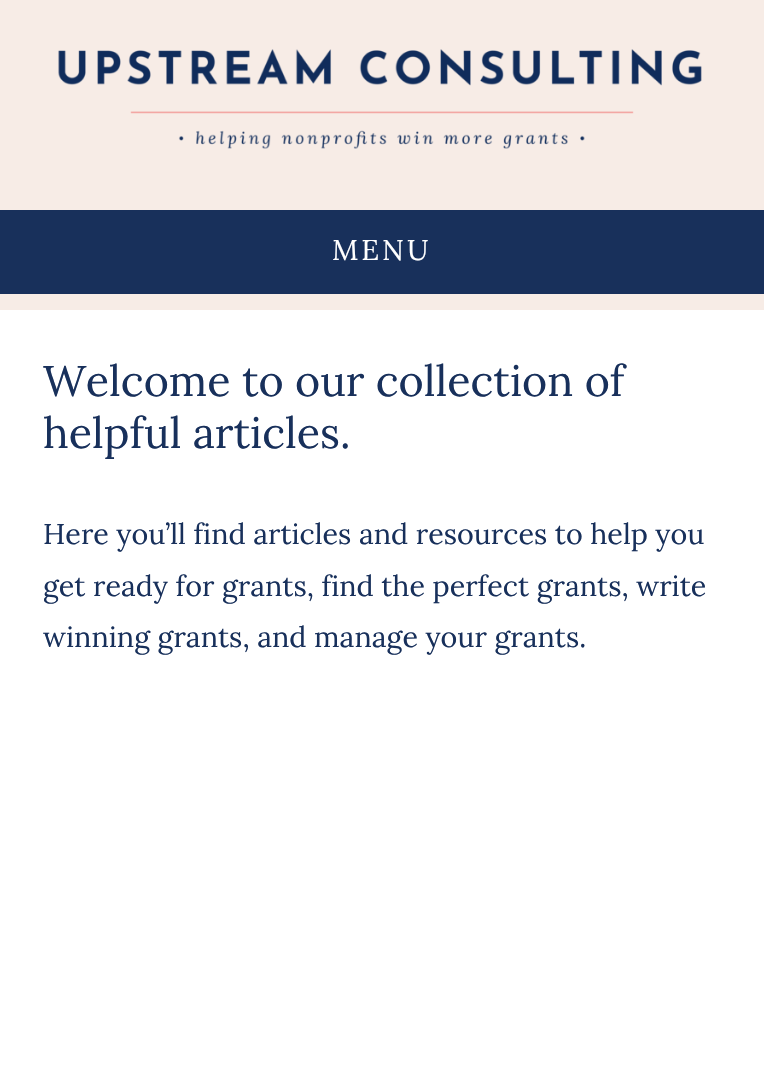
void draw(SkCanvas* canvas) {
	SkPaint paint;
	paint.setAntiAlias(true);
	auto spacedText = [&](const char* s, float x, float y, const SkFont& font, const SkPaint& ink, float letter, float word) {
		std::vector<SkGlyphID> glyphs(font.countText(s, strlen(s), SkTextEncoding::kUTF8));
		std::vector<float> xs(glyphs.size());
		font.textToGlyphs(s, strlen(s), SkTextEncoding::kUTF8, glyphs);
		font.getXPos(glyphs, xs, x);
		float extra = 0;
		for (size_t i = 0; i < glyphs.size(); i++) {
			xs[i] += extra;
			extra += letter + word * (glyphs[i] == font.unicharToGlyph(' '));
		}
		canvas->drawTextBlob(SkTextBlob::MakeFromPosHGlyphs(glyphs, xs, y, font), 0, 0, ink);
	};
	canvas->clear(0xffffffff);
	paint.setColor(0xfff7ece6);
	canvas->drawRect(SkRect::MakeXYWH(0, 0, 764, 310), paint);
	canvas->drawImageRect(SkImages::DeferredFromEncodedData(SkData::MakeFromFileName("img1.png")), SkRect::MakeXYWH(58, 49, 644, 100), SkSamplingOptions());
	paint.setColor(0xff18305b);
	canvas->drawRect(SkRect::MakeXYWH(0, 210, 764, 84), paint);
	SkFont f1(fontMgr->matchFamilyStyle("Lora", SkFontStyle::Normal()), 28.65);
	f1.setSubpixel(true);
	paint.setColor(0xffffffff);
	spacedText("MENU", 332, 260, f1, paint, 3, 0);
	SkFont f2(fontMgr->matchFamilyStyle("Lora", SkFontStyle::Normal()), 43);
	f2.setSubpixel(true);
	paint.setColor(0xff18305b);
	canvas->drawString("Welcome to our collection of", 43, 396, f2, paint);
	canvas->drawString("helpful articles.", 43, 448, f2, paint);
	canvas->drawString("Here you’ll find articles and resources to help you", 43, 544, f1, paint);
	canvas->drawString("get ready for grants, find the perfect grants, write", 43, 596, f1, paint);
	canvas->drawString("winning grants, and manage your grants.", 43, 647, f1, paint);
}
